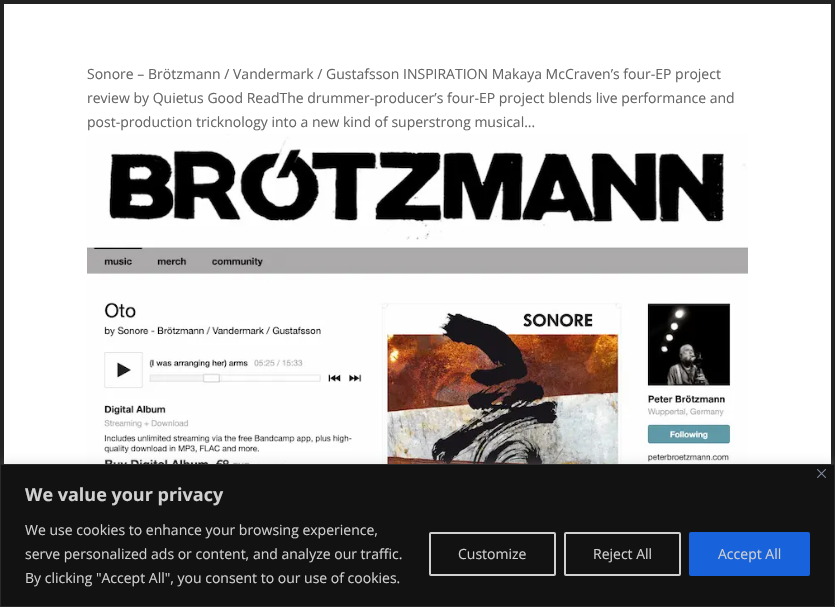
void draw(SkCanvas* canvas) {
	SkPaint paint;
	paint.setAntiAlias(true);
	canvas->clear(0xff232323);
	paint.setColor(0xffffffff);
	canvas->drawRect(SkRect::MakeXYWH(4, 4, 827, 460), paint);
	SkFont f1(fontMgr->matchFamilyStyle("Open Sans", SkFontStyle::Normal()), 14);
	f1.setSubpixel(true);
	paint.setColor(0xff666666);
	canvas->drawString("Sonore – Brötzmann / Vandermark / Gustafsson INSPIRATION Makaya McCraven’s four-EP project", 87, 79, f1, paint);
	canvas->drawString("review by Quietus Good ReadThe drummer-producer’s four-EP project blends live performance and", 87, 103, f1, paint);
	canvas->drawString("post-production tricknology into a new kind of superstrong musical...", 87, 127, f1, paint);
	canvas->drawImageRect(SkImages::DeferredFromEncodedData(SkData::MakeFromFileName("img1.png")), SkRect::MakeXYWH(87, 134, 661, 330), SkSamplingOptions());
	paint.setColor(0x4dacabab);
	paint.setMaskFilter(SkMaskFilter::MakeBlur(kNormal_SkBlurStyle, 5));
	canvas->drawRect(SkRect::MakeXYWH(0, 463, 835, 143), paint);
	paint.setMaskFilter(nullptr);
	paint.setColor(0xff121212);
	canvas->drawRect(SkRect::MakeXYWH(0.5, 464.5, 834, 142), paint);
	paint.setStroke(true);
	paint.setStrokeWidth(1);
	paint.setColor(0xff2a2a2a);
	canvas->drawRect(SkRect::MakeXYWH(0.5, 464.5, 834, 142), paint);
	canvas->drawImageRect(SkImages::DeferredFromEncodedData(SkData::MakeFromFileName("img2.png")), SkRect::MakeXYWH(817, 469, 9, 9), SkSamplingOptions());
	SkFont f2(fontMgr->matchFamilyStyle("Open Sans", SkFontStyle::Bold()), 18);
	f2.setSubpixel(true);
	paint.setStroke(false);
	paint.setColor(0xffd0d0d0);
	canvas->drawString("We value your privacy", 25, 501, f2, paint);
	canvas->drawString("We use cookies to enhance your browsing experience,", 25, 535, f1, paint);
	canvas->drawString("serve personalized ads or content, and analyze our traffic.", 25, 559, f1, paint);
	canvas->drawString("By clicking \"Accept All\", you consent to our use of cookies.", 25, 583, f1, paint);
	paint.setStroke(true);
	paint.setStrokeWidth(2);
	canvas->drawRoundRect(SkRect::MakeXYWH(430, 533, 125, 42), 1, 1, paint);
	paint.setStroke(false);
	canvas->drawString("Customize", 458, 559, f1, paint);
	paint.setStroke(true);
	canvas->drawRoundRect(SkRect::MakeXYWH(565, 533, 115, 42), 1, 1, paint);
	paint.setStroke(false);
	canvas->drawString("Reject All", 593, 559, f1, paint);
	paint.setColor(0xff1863dc);
	canvas->drawRoundRect(SkRect::MakeXYWH(690, 533, 119, 42), 1, 1, paint);
	paint.setStroke(true);
	canvas->drawRoundRect(SkRect::MakeXYWH(690, 533, 119, 42), 1, 1, paint);
	paint.setStroke(false);
	paint.setColor(0xffd0d0d0);
	canvas->drawString("Accept All", 718, 559, f1, paint);
}
